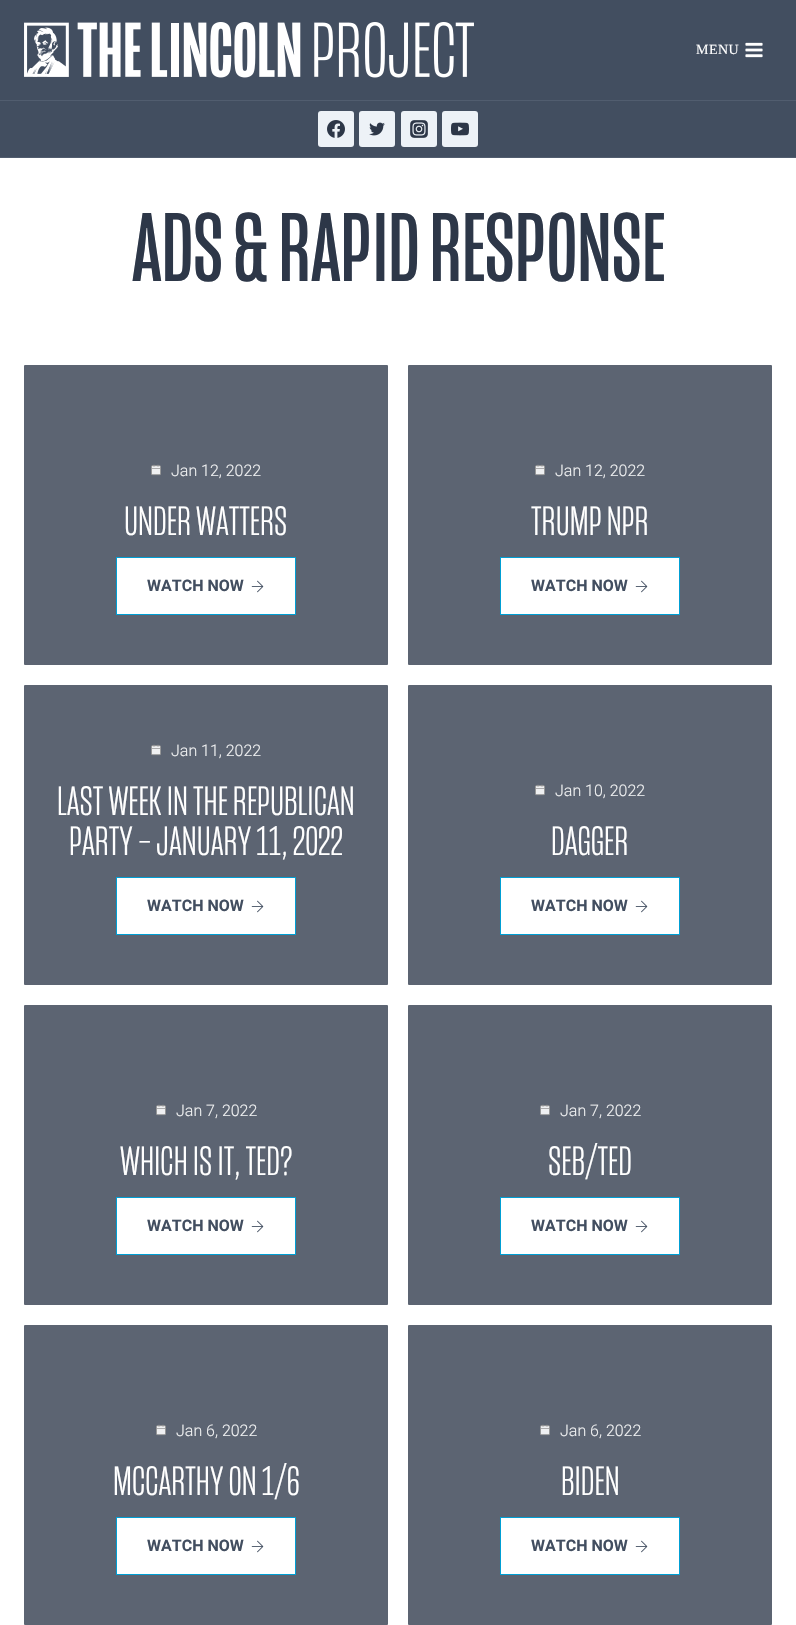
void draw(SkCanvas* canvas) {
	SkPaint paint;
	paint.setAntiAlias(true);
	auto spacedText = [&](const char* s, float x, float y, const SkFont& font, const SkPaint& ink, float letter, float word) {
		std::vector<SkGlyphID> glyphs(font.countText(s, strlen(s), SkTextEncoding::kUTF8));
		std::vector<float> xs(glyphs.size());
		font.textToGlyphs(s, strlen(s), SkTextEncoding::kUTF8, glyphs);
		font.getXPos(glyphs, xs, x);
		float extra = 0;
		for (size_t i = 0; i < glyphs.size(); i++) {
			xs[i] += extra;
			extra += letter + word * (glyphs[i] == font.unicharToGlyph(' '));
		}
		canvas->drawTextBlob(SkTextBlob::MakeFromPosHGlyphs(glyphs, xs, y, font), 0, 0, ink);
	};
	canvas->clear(0xffffffff);
	paint.setColor(0xff424e60);
	canvas->drawRect(SkRect::MakeXYWH(0, 0, 796, 157), paint);
	canvas->drawImageRect(SkImages::DeferredFromEncodedData(SkData::MakeFromFileName("img1.png")), SkRect::MakeXYWH(24, 22, 450, 56), SkSamplingOptions());
	SkFont f1(fontMgr->matchFamilyStyle("Liberation Serif", SkFontStyle::Normal()), 14);
	f1.setSubpixel(true);
	paint.setColor(0xffffffff);
	spacedText("MENU", 696, 54, f1, paint, 0.5, 0);
	canvas->drawImageRect(SkImages::DeferredFromEncodedData(SkData::MakeFromFileName("img2.png")), SkRect::MakeXYWH(745, 42, 18, 16), SkSamplingOptions());
	paint.setColor(0xff515d6f);
	canvas->drawRect(SkRect::MakeXYWH(0, 100, 796, 1), paint);
	canvas->drawRect(SkRect::MakeXYWH(0, 157, 796, 1), paint);
	paint.setColor(0xffedf2f7);
	canvas->drawRoundRect(SkRect::MakeXYWH(318, 111, 36, 36), 3, 3, paint);
	canvas->drawImageRect(SkImages::DeferredFromEncodedData(SkData::MakeFromFileName("img3.png")), SkRect::MakeXYWH(327, 120, 18, 18), SkSamplingOptions());
	canvas->drawRoundRect(SkRect::MakeXYWH(359, 111, 36, 36), 3, 3, paint);
	canvas->drawImageRect(SkImages::DeferredFromEncodedData(SkData::MakeFromFileName("img4.png")), SkRect::MakeXYWH(369, 122, 16, 14), SkSamplingOptions());
	canvas->drawRoundRect(SkRect::MakeXYWH(401, 111, 36, 36), 3, 3, paint);
	canvas->drawImageRect(SkImages::DeferredFromEncodedData(SkData::MakeFromFileName("img5.png")), SkRect::MakeXYWH(410, 120, 18, 18), SkSamplingOptions());
	canvas->drawRoundRect(SkRect::MakeXYWH(442, 111, 36, 36), 3, 3, paint);
	canvas->drawImageRect(SkImages::DeferredFromEncodedData(SkData::MakeFromFileName("img6.png")), SkRect::MakeXYWH(451, 122, 18, 14), SkSamplingOptions());
	SkFont f2(fontMgr->matchFamilyStyle("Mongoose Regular", SkFontStyle::Normal()), 100);
	f2.setSubpixel(true);
	paint.setColor(0xff2d3748);
	canvas->drawString("ADS & RAPID RESPONSE", 132, 281, f2, paint);
	paint.setColor(0xff5c6472);
	canvas->drawRoundRect(SkRect::MakeXYWH(24, 365, 364, 300), 1, 1, paint);
	canvas->drawImageRect(SkImages::DeferredFromEncodedData(SkData::MakeFromFileName("img7.png")), SkRect::MakeXYWH(151, 464, 10, 12), SkSamplingOptions());
	SkFont f3(fontMgr->matchFamilyStyle("Roboto", SkFontStyle(300, SkFontStyle::kNormal_Width, SkFontStyle::kUpright_Slant)), 16);
	f3.setSubpixel(true);
	paint.setColor(0xffeff0f1);
	canvas->drawString("Jan 12, 2022", 171, 476, f3, paint);
	SkFont f4(fontMgr->matchFamilyStyle("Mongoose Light", SkFontStyle(300, SkFontStyle::kNormal_Width, SkFontStyle::kUpright_Slant)), 42);
	f4.setSubpixel(true);
	paint.setColor(0xffffffff);
	canvas->drawString("UNDER WATTERS", 124, 535, f4, paint);
	canvas->drawRect(SkRect::MakeXYWH(116.5, 557.5, 179, 57), paint);
	paint.setStroke(true);
	paint.setStrokeWidth(1);
	paint.setColor(0xff009fd4);
	canvas->drawRect(SkRect::MakeXYWH(116.5, 557.5, 179, 57), paint);
	SkFont f5(fontMgr->matchFamilyStyle("Roboto", SkFontStyle::Bold()), 16);
	f5.setSubpixel(true);
	paint.setStroke(false);
	paint.setColor(0xff424e60);
	canvas->drawString("WATCH NOW", 147, 591, f5, paint);
	canvas->drawImageRect(SkImages::DeferredFromEncodedData(SkData::MakeFromFileName("img8.png")), SkRect::MakeXYWH(251, 580, 13, 13), SkSamplingOptions());
	paint.setColor(0xff5c6472);
	canvas->drawRoundRect(SkRect::MakeXYWH(408, 365, 364, 300), 1, 1, paint);
	canvas->drawImageRect(SkImages::DeferredFromEncodedData(SkData::MakeFromFileName("img7.png")), SkRect::MakeXYWH(535, 464, 10, 12), SkSamplingOptions());
	paint.setColor(0xffeff0f1);
	canvas->drawString("Jan 12, 2022", 555, 476, f3, paint);
	paint.setColor(0xffffffff);
	canvas->drawString("TRUMP NPR", 531, 535, f4, paint);
	canvas->drawRect(SkRect::MakeXYWH(500.5, 557.5, 179, 57), paint);
	paint.setStroke(true);
	paint.setColor(0xff009fd4);
	canvas->drawRect(SkRect::MakeXYWH(500.5, 557.5, 179, 57), paint);
	paint.setStroke(false);
	paint.setColor(0xff424e60);
	canvas->drawString("WATCH NOW", 531, 591, f5, paint);
	canvas->drawImageRect(SkImages::DeferredFromEncodedData(SkData::MakeFromFileName("img8.png")), SkRect::MakeXYWH(635, 580, 13, 13), SkSamplingOptions());
	paint.setColor(0xff5c6472);
	canvas->drawRoundRect(SkRect::MakeXYWH(24, 685, 364, 300), 1, 1, paint);
	canvas->drawImageRect(SkImages::DeferredFromEncodedData(SkData::MakeFromFileName("img7.png")), SkRect::MakeXYWH(151, 744, 10, 12), SkSamplingOptions());
	paint.setColor(0xffeff0f1);
	canvas->drawString("Jan 11, 2022", 171, 756, f3, paint);
	paint.setColor(0xffffffff);
	canvas->drawString("LAST WEEK IN THE REPUBLICAN", 57, 815, f4, paint);
	canvas->drawString("PARTY – JANUARY 11, 2022", 69, 855, f4, paint);
	canvas->drawRect(SkRect::MakeXYWH(116.5, 877.5, 179, 57), paint);
	paint.setStroke(true);
	paint.setColor(0xff009fd4);
	canvas->drawRect(SkRect::MakeXYWH(116.5, 877.5, 179, 57), paint);
	paint.setStroke(false);
	paint.setColor(0xff424e60);
	canvas->drawString("WATCH NOW", 147, 911, f5, paint);
	canvas->drawImageRect(SkImages::DeferredFromEncodedData(SkData::MakeFromFileName("img8.png")), SkRect::MakeXYWH(251, 900, 13, 13), SkSamplingOptions());
	paint.setColor(0xff5c6472);
	canvas->drawRoundRect(SkRect::MakeXYWH(408, 685, 364, 300), 1, 1, paint);
	canvas->drawImageRect(SkImages::DeferredFromEncodedData(SkData::MakeFromFileName("img7.png")), SkRect::MakeXYWH(535, 784, 10, 12), SkSamplingOptions());
	paint.setColor(0xffeff0f1);
	canvas->drawString("Jan 10, 2022", 555, 796, f3, paint);
	paint.setColor(0xffffffff);
	canvas->drawString("DAGGER", 551, 855, f4, paint);
	canvas->drawRect(SkRect::MakeXYWH(500.5, 877.5, 179, 57), paint);
	paint.setStroke(true);
	paint.setColor(0xff009fd4);
	canvas->drawRect(SkRect::MakeXYWH(500.5, 877.5, 179, 57), paint);
	paint.setStroke(false);
	paint.setColor(0xff424e60);
	canvas->drawString("WATCH NOW", 531, 911, f5, paint);
	canvas->drawImageRect(SkImages::DeferredFromEncodedData(SkData::MakeFromFileName("img8.png")), SkRect::MakeXYWH(635, 900, 13, 13), SkSamplingOptions());
	paint.setColor(0xff5c6472);
	canvas->drawRoundRect(SkRect::MakeXYWH(24, 1005, 364, 300), 1, 1, paint);
	canvas->drawImageRect(SkImages::DeferredFromEncodedData(SkData::MakeFromFileName("img7.png")), SkRect::MakeXYWH(156, 1104, 10, 12), SkSamplingOptions());
	paint.setColor(0xffeff0f1);
	canvas->drawString("Jan 7, 2022", 176, 1116, f3, paint);
	paint.setColor(0xffffffff);
	canvas->drawString("WHICH IS IT, TED?", 120, 1175, f4, paint);
	canvas->drawRect(SkRect::MakeXYWH(116.5, 1197.5, 179, 57), paint);
	paint.setStroke(true);
	paint.setColor(0xff009fd4);
	canvas->drawRect(SkRect::MakeXYWH(116.5, 1197.5, 179, 57), paint);
	paint.setStroke(false);
	paint.setColor(0xff424e60);
	canvas->drawString("WATCH NOW", 147, 1231, f5, paint);
	canvas->drawImageRect(SkImages::DeferredFromEncodedData(SkData::MakeFromFileName("img8.png")), SkRect::MakeXYWH(251, 1220, 13, 13), SkSamplingOptions());
	paint.setColor(0xff5c6472);
	canvas->drawRoundRect(SkRect::MakeXYWH(408, 1005, 364, 300), 1, 1, paint);
	canvas->drawImageRect(SkImages::DeferredFromEncodedData(SkData::MakeFromFileName("img7.png")), SkRect::MakeXYWH(540, 1104, 10, 12), SkSamplingOptions());
	paint.setColor(0xffeff0f1);
	canvas->drawString("Jan 7, 2022", 560, 1116, f3, paint);
	paint.setColor(0xffffffff);
	canvas->drawString("SEB/TED", 548, 1175, f4, paint);
	canvas->drawRect(SkRect::MakeXYWH(500.5, 1197.5, 179, 57), paint);
	paint.setStroke(true);
	paint.setColor(0xff009fd4);
	canvas->drawRect(SkRect::MakeXYWH(500.5, 1197.5, 179, 57), paint);
	paint.setStroke(false);
	paint.setColor(0xff424e60);
	canvas->drawString("WATCH NOW", 531, 1231, f5, paint);
	canvas->drawImageRect(SkImages::DeferredFromEncodedData(SkData::MakeFromFileName("img8.png")), SkRect::MakeXYWH(635, 1220, 13, 13), SkSamplingOptions());
	paint.setColor(0xff5c6472);
	canvas->drawRoundRect(SkRect::MakeXYWH(24, 1325, 364, 300), 1, 1, paint);
	canvas->drawImageRect(SkImages::DeferredFromEncodedData(SkData::MakeFromFileName("img7.png")), SkRect::MakeXYWH(156, 1424, 10, 12), SkSamplingOptions());
	paint.setColor(0xffeff0f1);
	canvas->drawString("Jan 6, 2022", 176, 1436, f3, paint);
	paint.setColor(0xffffffff);
	canvas->drawString("MCCARTHY ON 1/6", 113, 1495, f4, paint);
	canvas->drawRect(SkRect::MakeXYWH(116.5, 1517.5, 179, 57), paint);
	paint.setStroke(true);
	paint.setColor(0xff009fd4);
	canvas->drawRect(SkRect::MakeXYWH(116.5, 1517.5, 179, 57), paint);
	paint.setStroke(false);
	paint.setColor(0xff424e60);
	canvas->drawString("WATCH NOW", 147, 1551, f5, paint);
	canvas->drawImageRect(SkImages::DeferredFromEncodedData(SkData::MakeFromFileName("img8.png")), SkRect::MakeXYWH(251, 1540, 13, 13), SkSamplingOptions());
	paint.setColor(0xff5c6472);
	canvas->drawRoundRect(SkRect::MakeXYWH(408, 1325, 364, 300), 1, 1, paint);
	canvas->drawImageRect(SkImages::DeferredFromEncodedData(SkData::MakeFromFileName("img7.png")), SkRect::MakeXYWH(540, 1424, 10, 12), SkSamplingOptions());
	paint.setColor(0xffeff0f1);
	canvas->drawString("Jan 6, 2022", 560, 1436, f3, paint);
	paint.setColor(0xffffffff);
	canvas->drawString("BIDEN", 561, 1495, f4, paint);
	canvas->drawRect(SkRect::MakeXYWH(500.5, 1517.5, 179, 57), paint);
	paint.setStroke(true);
	paint.setColor(0xff009fd4);
	canvas->drawRect(SkRect::MakeXYWH(500.5, 1517.5, 179, 57), paint);
	paint.setStroke(false);
	paint.setColor(0xff424e60);
	canvas->drawString("WATCH NOW", 531, 1551, f5, paint);
	canvas->drawImageRect(SkImages::DeferredFromEncodedData(SkData::MakeFromFileName("img8.png")), SkRect::MakeXYWH(635, 1540, 13, 13), SkSamplingOptions());
}
